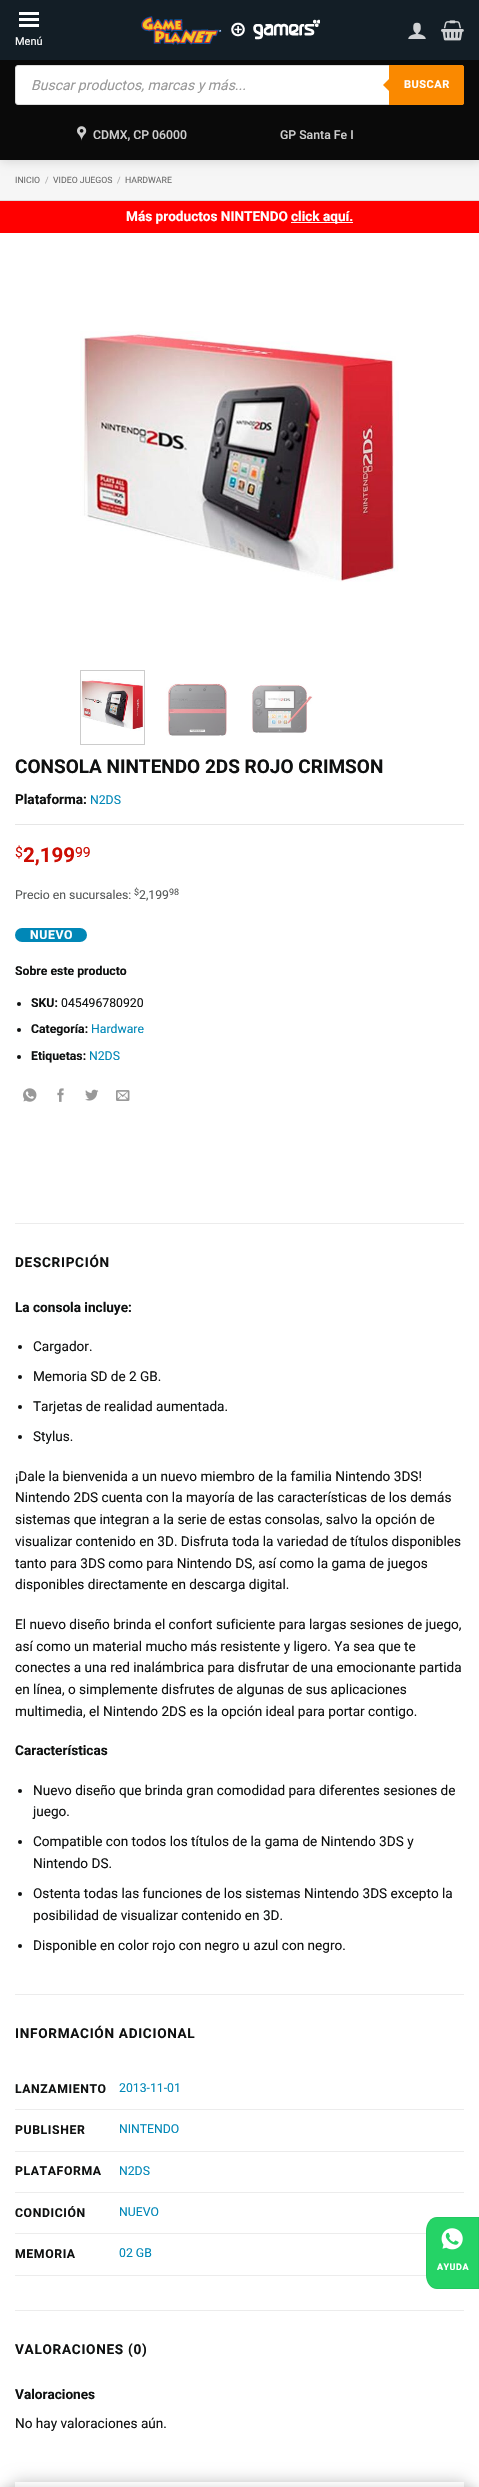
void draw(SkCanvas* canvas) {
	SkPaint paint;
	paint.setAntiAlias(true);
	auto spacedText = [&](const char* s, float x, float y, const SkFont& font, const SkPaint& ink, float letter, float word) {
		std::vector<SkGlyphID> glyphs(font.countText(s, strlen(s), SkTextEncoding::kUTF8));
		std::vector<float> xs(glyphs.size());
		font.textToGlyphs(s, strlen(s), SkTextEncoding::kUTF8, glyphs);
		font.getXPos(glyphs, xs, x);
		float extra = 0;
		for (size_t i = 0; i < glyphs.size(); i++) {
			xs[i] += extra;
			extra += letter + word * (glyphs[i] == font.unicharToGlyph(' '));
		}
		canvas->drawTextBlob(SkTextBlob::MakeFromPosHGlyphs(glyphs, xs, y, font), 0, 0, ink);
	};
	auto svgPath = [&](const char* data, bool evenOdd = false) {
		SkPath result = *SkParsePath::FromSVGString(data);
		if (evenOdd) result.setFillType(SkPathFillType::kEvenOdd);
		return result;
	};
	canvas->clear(0xffffffff);
	paint.setColor(0xfff6f6f6);
	canvas->drawRect(SkRect::MakeXYWH(0, 160, 479, 40), paint);
	paint.setColor(0x26000000);
	paint.setMaskFilter(SkMaskFilter::MakeBlur(kNormal_SkBlurStyle, 5));
	canvas->drawRect(SkRect::MakeXYWH(1, 1, 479, 160), paint);
	paint.setMaskFilter(nullptr);
	paint.setColor(0xff131e26);
	canvas->drawRect(SkRect::MakeXYWH(0, 0, 479, 60), paint);
	canvas->drawImageRect(SkImages::DeferredFromEncodedData(SkData::MakeFromFileName("img1.png")), SkRect::MakeXYWH(19, 12, 20, 15), SkSamplingOptions());
	SkFont f1(fontMgr->matchFamilyStyle("Roboto", SkFontStyle::Normal()), 11);
	f1.setSubpixel(true);
	paint.setColor(0xffffffff);
	canvas->drawString("Menú", 15, 45, f1, paint);
	canvas->drawImageRect(SkImages::DeferredFromEncodedData(SkData::MakeFromFileName("img2.png")), SkRect::MakeXYWH(141, 16, 179, 29), SkSamplingOptions());
	canvas->drawImageRect(SkImages::DeferredFromEncodedData(SkData::MakeFromFileName("img3.png")), SkRect::MakeXYWH(408, 22, 18, 17), SkSamplingOptions());
	canvas->drawImageRect(SkImages::DeferredFromEncodedData(SkData::MakeFromFileName("img4.png")), SkRect::MakeXYWH(441, 20, 23, 21), SkSamplingOptions());
	paint.setColor(0xff0a0a0a);
	canvas->drawRect(SkRect::MakeXYWH(0, 60, 479, 100), paint);
	paint.setColor(0xffffffff);
	canvas->drawRoundRect(SkRect::MakeXYWH(15.5, 65.5, 448, 39), 2.5, 2.5, paint);
	paint.setStroke(true);
	paint.setStrokeWidth(1);
	paint.setColor(0xffdddddd);
	canvas->drawRoundRect(SkRect::MakeXYWH(15.5, 65.5, 448, 39), 2.5, 2.5, paint);
	SkFont f2(fontMgr->matchFamilyStyle("Roboto", SkFontStyle::Italic()), 14);
	f2.setSubpixel(true);
	paint.setStroke(false);
	paint.setColor(0xff999999);
	canvas->drawString("Buscar productos, marcas y más...", 31, 90, f2, paint);
	paint.setColor(0xfffa8900);
	canvas->drawPath(svgPath("M389 65H462C463 65 464 66 464 67V103C464 104 463 105 462 105H389Z"), paint);
	canvas->drawPath(svgPath("M391 77V93L383 85Z"), paint);
	SkFont f3(fontMgr->matchFamilyStyle("Roboto", SkFontStyle::Bold()), 11);
	f3.setSubpixel(true);
	paint.setColor(0xffffffff);
	spacedText("BUSCAR", 404, 88, f3, paint, 0.5, 0);
	canvas->drawImageRect(SkImages::DeferredFromEncodedData(SkData::MakeFromFileName("img5.png")), SkRect::MakeXYWH(77, 126, 10, 15), SkSamplingOptions());
	SkFont f4(fontMgr->matchFamilyStyle("Roboto", SkFontStyle(500, SkFontStyle::kNormal_Width, SkFontStyle::kUpright_Slant)), 12.25);
	f4.setSubpixel(true);
	paint.setColor(0xffcecece);
	canvas->drawString("CDMX, CP 06000", 93, 139, f4, paint);
	canvas->drawString("GP Santa Fe I", 280, 139, f4, paint);
	paint.setColor(0xffdddddd);
	canvas->drawRect(SkRect::MakeXYWH(0, 200, 479, 1), paint);
	SkFont f5(fontMgr->matchFamilyStyle("Roboto", SkFontStyle::Normal()), 8.75);
	f5.setSubpixel(true);
	paint.setColor(0xff6c6c6c);
	canvas->drawString("INICIO", 15, 183, f5, paint);
	paint.setColor(0xffacacac);
	canvas->drawString("/", 45, 183, f5, paint);
	paint.setColor(0xff6c6c6c);
	canvas->drawString("VIDEO JUEGOS", 53, 183, f5, paint);
	paint.setColor(0xffacacac);
	canvas->drawString("/", 117, 183, f5, paint);
	paint.setColor(0xff6c6c6c);
	canvas->drawString("HARDWARE", 125, 183, f5, paint);
	paint.setColor(0xffff0000);
	canvas->drawRect(SkRect::MakeXYWH(0, 201, 479, 32), paint);
	SkFont f6(fontMgr->matchFamilyStyle("Roboto", SkFontStyle::Bold()), 13.6);
	f6.setSubpixel(true);
	paint.setColor(0xffffffff);
	canvas->drawString("Más productos NINTENDO", 126, 221, f6, paint);
	canvas->drawRect(SkRect::MakeXYWH(291, 222, 62, 1), paint);
	canvas->drawString("click aquí.", 291, 221, f6, paint);
	canvas->drawImageRect(SkImages::DeferredFromEncodedData(SkData::MakeFromFileName("img6.png")), SkRect::MakeXYWH(80, 331, 319, 251), SkSamplingOptions());
	paint.setStroke(true);
	paint.setColor(0xffcccccc);
	canvas->drawRect(SkRect::MakeXYWH(80.5, 670.5, 64, 74), paint);
	canvas->drawImageRect(SkImages::DeferredFromEncodedData(SkData::MakeFromFileName("img7.png")), SkRect::MakeXYWH(81, 679, 63, 52), SkSamplingOptions());
	canvas->drawImageRect(SkImages::DeferredFromEncodedData(SkData::MakeFromFileName("img8.png")), SkRect::MakeXYWH(166, 683, 61, 53), SkSamplingOptions());
	canvas->drawImageRect(SkImages::DeferredFromEncodedData(SkData::MakeFromFileName("img9.png")), SkRect::MakeXYWH(252, 684, 61, 49), SkSamplingOptions());
	SkFont f7(fontMgr->matchFamilyStyle("Roboto", SkFontStyle::Bold()), 19);
	f7.setSubpixel(true);
	paint.setStroke(false);
	paint.setColor(0xff0f1111);
	canvas->drawString("CONSOLA NINTENDO 2DS ROJO CRIMSON", 15, 773, f7, paint);
	canvas->drawString("Plataforma:", 15, 804, f6, paint);
	SkFont f8(fontMgr->matchFamilyStyle("Roboto", SkFontStyle::Normal()), 12.25);
	f8.setSubpixel(true);
	paint.setColor(0xff0087b7);
	canvas->drawString("N2DS", 90, 804, f8, paint);
	paint.setColor(0xffe6e6e6);
	canvas->drawRect(SkRect::MakeXYWH(15, 824, 449, 1), paint);
	SkFont f9(fontMgr->matchFamilyStyle("Roboto", SkFontStyle::Normal()), 14);
	f9.setSubpixel(true);
	paint.setColor(0xffcd0d03);
	canvas->drawString("$", 15, 857, f9, paint);
	SkFont f10(fontMgr->matchFamilyStyle("Roboto", SkFontStyle::Bold()), 20.5);
	f10.setSubpixel(true);
	canvas->drawString("2,199", 23, 862, f10, paint);
	canvas->drawString("99", 75, 857, f9, paint);
	paint.setColor(0xff565959);
	canvas->drawString("Precio en sucursales:", 15, 899, f8, paint);
	SkFont f11(fontMgr->matchFamilyStyle("Roboto", SkFontStyle::Normal()), 9);
	f11.setSubpixel(true);
	canvas->drawString("$", 134, 895, f11, paint);
	canvas->drawString("2,199", 139, 899, f8, paint);
	canvas->drawString("98", 169, 895, f11, paint);
	paint.setColor(0xff0087b7);
	canvas->drawRoundRect(SkRect::MakeXYWH(15, 928, 72, 14), 7, 7, paint);
	SkFont f12(fontMgr->matchFamilyStyle("Roboto", SkFontStyle::Bold()), 12.25);
	f12.setSubpixel(true);
	paint.setColor(0xffffffff);
	spacedText("NUEVO", 30, 939, f12, paint, 0.6, 0);
	paint.setColor(0xff0f1111);
	canvas->drawString("Sobre este producto", 15, 975, f12, paint);
	canvas->drawCircle(19, 1004, 2, paint);
	canvas->drawString("SKU:", 31, 1007, f12, paint);
	canvas->drawString("045496780920", 61, 1007, f8, paint);
	canvas->drawCircle(19, 1030, 2, paint);
	canvas->drawString("Categoría:", 31, 1033, f12, paint);
	paint.setColor(0xff0087b7);
	canvas->drawString("Hardware", 91, 1033, f8, paint);
	paint.setColor(0xff0f1111);
	canvas->drawCircle(19, 1057, 2, paint);
	canvas->drawString("Etiquetas:", 31, 1060, f12, paint);
	paint.setColor(0xff0087b7);
	canvas->drawString("N2DS", 89, 1060, f8, paint);
	canvas->drawImageRect(SkImages::DeferredFromEncodedData(SkData::MakeFromFileName("img10.png")), SkRect::MakeXYWH(23, 1088, 14, 14), SkSamplingOptions());
	canvas->drawImageRect(SkImages::DeferredFromEncodedData(SkData::MakeFromFileName("img11.png")), SkRect::MakeXYWH(57, 1088, 7, 14), SkSamplingOptions());
	canvas->drawImageRect(SkImages::DeferredFromEncodedData(SkData::MakeFromFileName("img12.png")), SkRect::MakeXYWH(85, 1089, 14, 12), SkSamplingOptions());
	canvas->drawImageRect(SkImages::DeferredFromEncodedData(SkData::MakeFromFileName("img13.png")), SkRect::MakeXYWH(116, 1090, 14, 11), SkSamplingOptions());
	paint.setColor(0xffececec);
	canvas->drawRect(SkRect::MakeXYWH(15, 1223, 449, 1), paint);
	paint.setColor(0xff0f1111);
	spacedText("DESCRIPCIÓN", 15, 1267, f6, paint, 0.7, 0);
	canvas->drawString("La consola incluye:", 15, 1312, f6, paint);
	canvas->drawCircle(20, 1347, 2, paint);
	SkFont f13(fontMgr->matchFamilyStyle("Roboto", SkFontStyle::Normal()), 13.6);
	f13.setSubpixel(true);
	canvas->drawString("Cargador.", 33, 1351, f13, paint);
	canvas->drawCircle(20, 1377, 2, paint);
	canvas->drawString("Memoria SD de 2 GB.", 33, 1381, f13, paint);
	canvas->drawCircle(20, 1407, 2, paint);
	canvas->drawString("Tarjetas de realidad aumentada.", 33, 1411, f13, paint);
	canvas->drawCircle(20, 1437, 2, paint);
	canvas->drawString("Stylus.", 33, 1441, f13, paint);
	canvas->drawString("¡Dale la bienvenida a un nuevo miembro de la familia Nintendo 3DS!", 15, 1481, f13, paint);
	canvas->drawString("Nintendo 2DS cuenta con la mayoría de las características de los demás", 15, 1502, f13, paint);
	canvas->drawString("sistemas que integran a la serie de estas consolas, salvo la opción de", 15, 1524, f13, paint);
	canvas->drawString("visualizar contenido en 3D. Disfruta toda la variedad de títulos disponibles", 15, 1546, f13, paint);
	canvas->drawString("tanto para 3DS como para Nintendo DS, así como la gama de juegos", 15, 1568, f13, paint);
	canvas->drawString("disponibles directamente en descarga digital.", 15, 1589, f13, paint);
	canvas->drawString("El nuevo diseño brinda el confort suficiente para largas sesiones de juego,", 15, 1629, f13, paint);
	canvas->drawString("así como un material mucho más resistente y ligero. Ya sea que te", 15, 1651, f13, paint);
	canvas->drawString("conectes a una red inalámbrica para disfrutar de una emocionante partida", 15, 1672, f13, paint);
	canvas->drawString("en línea, o simplemente disfrutes de algunas de sus aplicaciones", 15, 1694, f13, paint);
	canvas->drawString("multimedia, el Nintendo 2DS es la opción ideal para portar contigo.", 15, 1716, f13, paint);
	canvas->drawString("Características", 15, 1755, f6, paint);
	canvas->drawCircle(20, 1791, 2, paint);
	canvas->drawString("Nuevo diseño que brinda gran comodidad para diferentes sesiones de", 33, 1795, f13, paint);
	canvas->drawString("juego.", 33, 1816, f13, paint);
	canvas->drawCircle(20, 1842, 2, paint);
	canvas->drawString("Compatible con todos los títulos de la gama de Nintendo 3DS y", 33, 1846, f13, paint);
	canvas->drawString("Nintendo DS.", 33, 1868, f13, paint);
	canvas->drawCircle(20, 1894, 2, paint);
	canvas->drawString("Ostenta todas las funciones de los sistemas Nintendo 3DS excepto la", 33, 1898, f13, paint);
	canvas->drawString("posibilidad de visualizar contenido en 3D.", 33, 1920, f13, paint);
	canvas->drawCircle(20, 1946, 2, paint);
	canvas->drawString("Disponible en color rojo con negro u azul con negro.", 33, 1950, f13, paint);
	paint.setColor(0xffececec);
	canvas->drawRect(SkRect::MakeXYWH(15, 1994, 449, 1), paint);
	paint.setColor(0xff0f1111);
	spacedText("INFORMACIÓN ADICIONAL", 15, 2038, f6, paint, 0.7, 0);
	paint.setColor(0xffececec);
	canvas->drawRect(SkRect::MakeXYWH(15, 2109, 449, 1), paint);
	paint.setColor(0xff0f1111);
	spacedText("LANZAMIENTO", 15, 2093, f12, paint, 0.6, 0);
	paint.setColor(0xff0087b7);
	canvas->drawString("2013-11-01", 119, 2092, f8, paint);
	paint.setColor(0xffececec);
	canvas->drawRect(SkRect::MakeXYWH(15, 2151, 449, 1), paint);
	paint.setColor(0xff0f1111);
	spacedText("PUBLISHER", 15, 2134, f12, paint, 0.6, 0);
	paint.setColor(0xff0087b7);
	canvas->drawString("NINTENDO", 119, 2133, f8, paint);
	paint.setColor(0xffececec);
	canvas->drawRect(SkRect::MakeXYWH(15, 2192, 449, 1), paint);
	paint.setColor(0xff0f1111);
	spacedText("PLATAFORMA", 15, 2175, f12, paint, 0.6, 0);
	paint.setColor(0xff0087b7);
	canvas->drawString("N2DS", 119, 2175, f8, paint);
	paint.setColor(0xffececec);
	canvas->drawRect(SkRect::MakeXYWH(15, 2233, 411, 1), paint);
	paint.setColor(0xff0f1111);
	spacedText("CONDICIÓN", 15, 2217, f12, paint, 0.6, 0);
	paint.setColor(0xff0087b7);
	canvas->drawString("NUEVO", 119, 2216, f8, paint);
	paint.setColor(0xffececec);
	canvas->drawRect(SkRect::MakeXYWH(15, 2275, 412, 1), paint);
	paint.setColor(0xff0f1111);
	spacedText("MEMORIA", 15, 2258, f12, paint, 0.6, 0);
	paint.setColor(0xff0087b7);
	canvas->drawString("02 GB", 119, 2257, f8, paint);
	paint.setColor(0xffececec);
	canvas->drawRect(SkRect::MakeXYWH(15, 2310, 449, 1), paint);
	paint.setColor(0xff0f1111);
	spacedText("VALORACIONES (0)", 15, 2354, f6, paint, 0.7, 0);
	canvas->drawString("Valoraciones", 15, 2399, f6, paint);
	canvas->drawString("No hay valoraciones aún.", 15, 2428, f13, paint);
	canvas->save();
	canvas->clipPath(svgPath("M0 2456H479V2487H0ZM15 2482H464V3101H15Z", true), true);
	paint.setColor(0xffd3d3d3);
	paint.setMaskFilter(SkMaskFilter::MakeBlur(kNormal_SkBlurStyle, 7.5));
	canvas->drawRect(SkRect::MakeXYWH(13, 2480, 453, 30), paint);
	paint.setMaskFilter(nullptr);
	canvas->restore();
	paint.setColor(0xff25d366);
	canvas->drawPath(svgPath("M437 2217H479V2289H437C431 2289 426 2283 426 2275V2231C426 2223 431 2217 437 2217Z"), paint);
	paint.setStroke(true);
	paint.setColor(0x0d000000);
	canvas->drawPath(svgPath("M436.5 2217.5H478.5V2288.5H436.5C431 2288.5 426.5 2282.5 426.5 2274.5V2231.5C426.5 2223.5 431 2217.5 436.5 2217.5Z"), paint);
	canvas->drawImageRect(SkImages::DeferredFromEncodedData(SkData::MakeFromFileName("img14.png")), SkRect::MakeXYWH(441, 2228, 22, 22), SkSamplingOptions());
	SkFont f14(fontMgr->matchFamilyStyle("Roboto", SkFontStyle::Bold()), 9);
	f14.setSubpixel(true);
	paint.setStroke(false);
	paint.setColor(0xffffffff);
	spacedText("AYUDA", 437, 2270, f14, paint, 0.5, 0);
	paint.setColor(0x24000000);
	paint.setMaskFilter(SkMaskFilter::MakeBlur(kNormal_SkBlurStyle, 4.5));
	canvas->drawRect(SkRect::MakeXYWH(0, 2487, 479, 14), paint);
	paint.setMaskFilter(nullptr);
}
